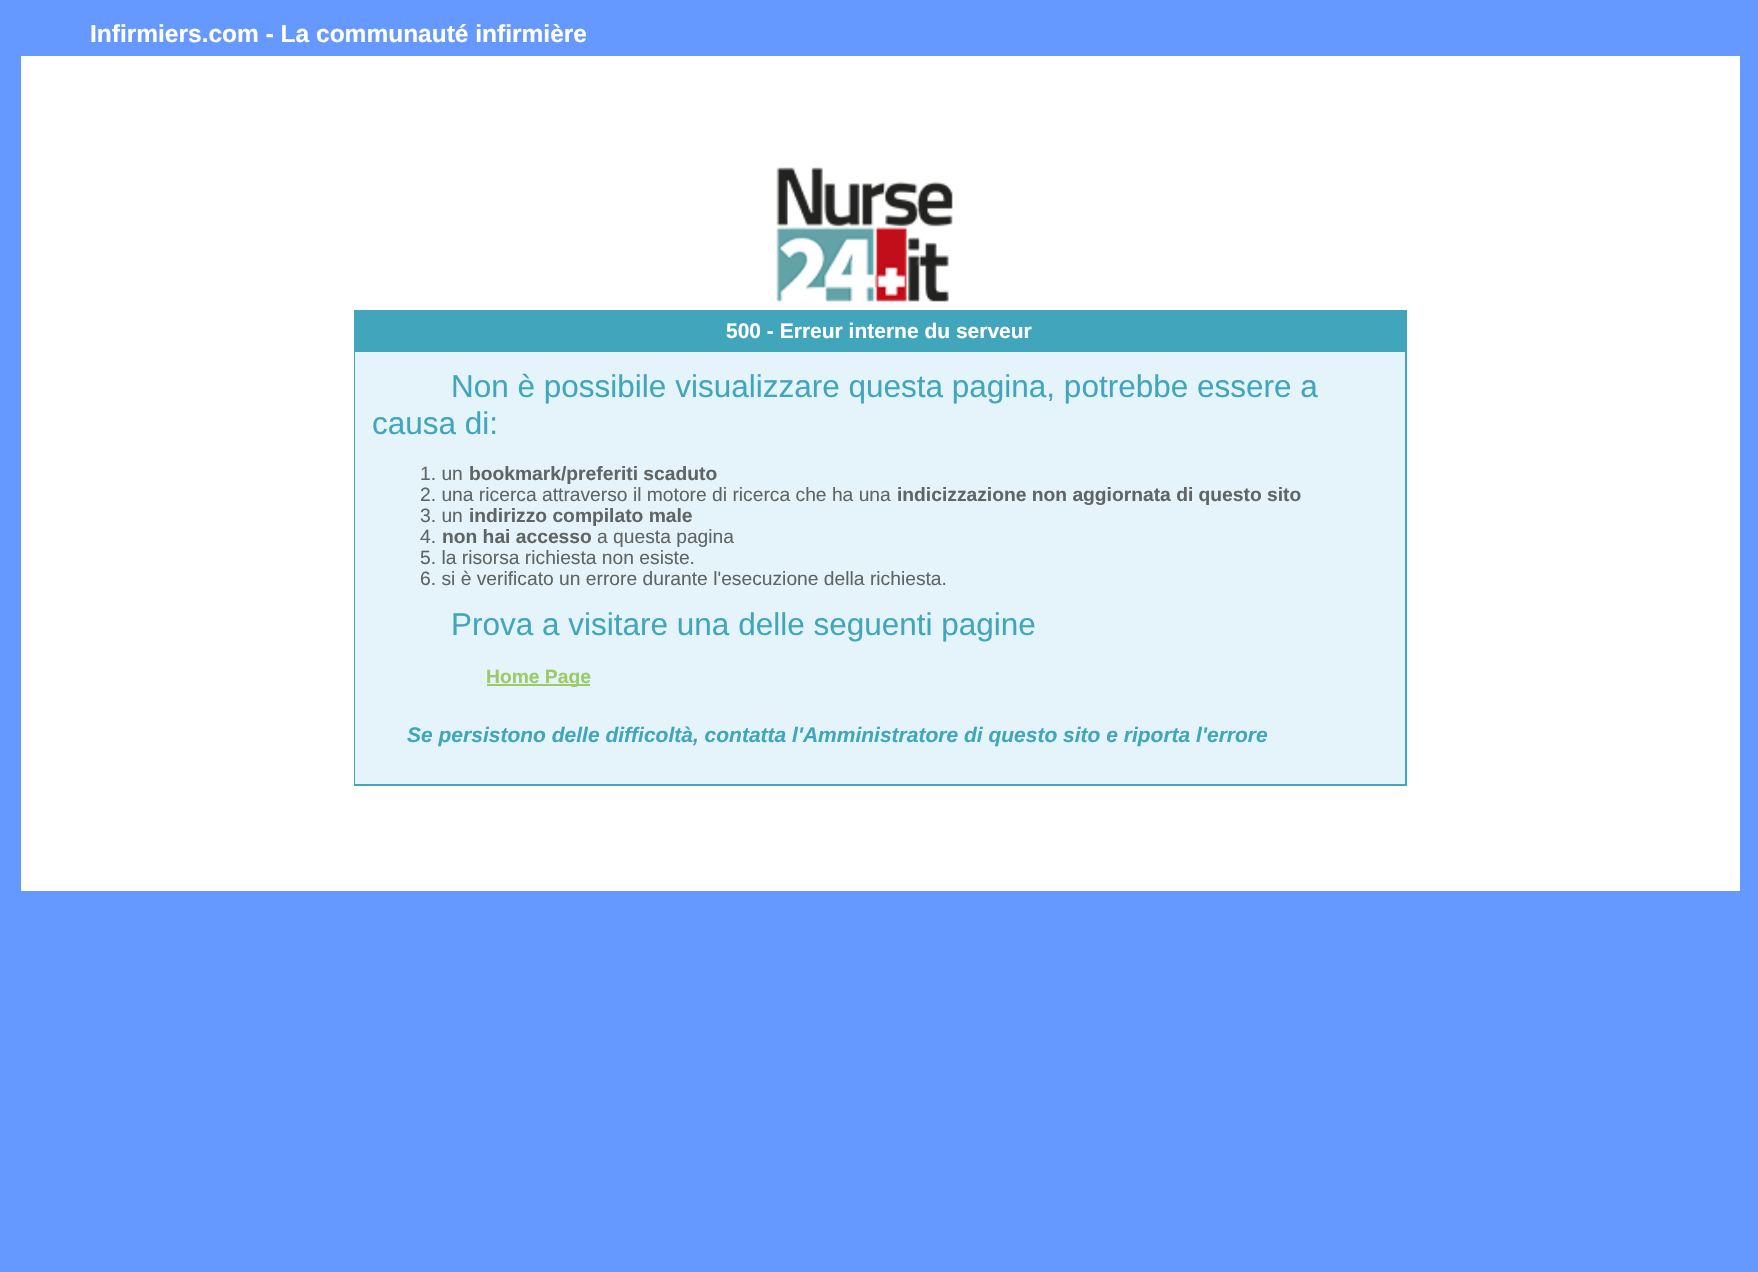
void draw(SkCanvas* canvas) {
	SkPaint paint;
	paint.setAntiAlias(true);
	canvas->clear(0xff6699ff);
	SkFont f1(fontMgr->matchFamilyStyle("Liberation Sans", SkFontStyle::Bold()), 24.5);
	f1.setSubpixel(true);
	paint.setColor(0xffffffff);
	canvas->drawString("Infirmiers.com - La communauté infirmière", 90, 42, f1, paint);
	canvas->drawRect(SkRect::MakeXYWH(21, 56, 1719, 835), paint);
	canvas->drawImageRect(SkImages::DeferredFromEncodedData(SkData::MakeFromFileName("img1.png")), SkRect::MakeXYWH(776, 167, 177, 135), SkSamplingOptions());
	paint.setStroke(true);
	paint.setStrokeWidth(2);
	paint.setColor(0xff41a6bc);
	canvas->drawRect(SkRect::MakeXYWH(355, 311, 1051, 474), paint);
	paint.setStroke(false);
	canvas->drawRect(SkRect::MakeXYWH(356, 312, 1049, 40), paint);
	SkFont f2(fontMgr->matchFamilyStyle("Liberation Sans", SkFontStyle::Bold()), 21);
	f2.setSubpixel(true);
	paint.setColor(0xffffffff);
	canvas->drawString("500 - Erreur interne du serveur", 726, 338, f2, paint);
	paint.setColor(0xffe5f4fa);
	canvas->drawRect(SkRect::MakeXYWH(355, 352, 1050, 432), paint);
	SkFont f3(fontMgr->matchFamilyStyle("Liberation Sans", SkFontStyle::Normal()), 31.5);
	f3.setSubpixel(true);
	paint.setColor(0xff41a6bc);
	canvas->drawString("Non è possibile visualizzare questa pagina, potrebbe essere a", 451, 397, f3, paint);
	canvas->drawString("causa di:", 372, 434, f3, paint);
	SkFont f4(fontMgr->matchFamilyStyle("Liberation Sans", SkFontStyle::Normal()), 19.25);
	f4.setSubpixel(true);
	paint.setColor(0xff5f6565);
	canvas->drawString("1. un", 420, 480, f4, paint);
	SkFont f5(fontMgr->matchFamilyStyle("Liberation Sans", SkFontStyle::Bold()), 19.25);
	f5.setSubpixel(true);
	canvas->drawString("bookmark/preferiti scaduto", 469, 480, f5, paint);
	canvas->drawString("2. una ricerca attraverso il motore di ricerca che ha una", 420, 501, f4, paint);
	canvas->drawString("indicizzazione non aggiornata di questo sito", 897, 501, f5, paint);
	canvas->drawString("3. un", 420, 522, f4, paint);
	canvas->drawString("indirizzo compilato male", 469, 522, f5, paint);
	canvas->drawString("4.", 420, 543, f4, paint);
	canvas->drawString("non hai accesso", 442, 543, f5, paint);
	canvas->drawString("a questa pagina", 597, 543, f4, paint);
	canvas->drawString("5. la risorsa richiesta non esiste.", 420, 564, f4, paint);
	canvas->drawString("6. si è verificato un errore durante l'esecuzione della richiesta.", 420, 585, f4, paint);
	paint.setColor(0xff41a6bc);
	canvas->drawString("Prova a visitare una delle seguenti pagine", 451, 635, f3, paint);
	paint.setColor(0xff99cc66);
	canvas->drawRect(SkRect::MakeXYWH(487, 684, 103, 2), paint);
	canvas->drawString("Home Page", 486, 683, f5, paint);
	SkFont f6(fontMgr->matchFamilyStyle("Liberation Sans", SkFontStyle::BoldItalic()), 21);
	f6.setSubpixel(true);
	paint.setColor(0xff41a6bc);
	canvas->drawString("Se persistono delle difficoltà, contatta l'Amministratore di questo sito e riporta l'errore", 407, 742, f6, paint);
}
